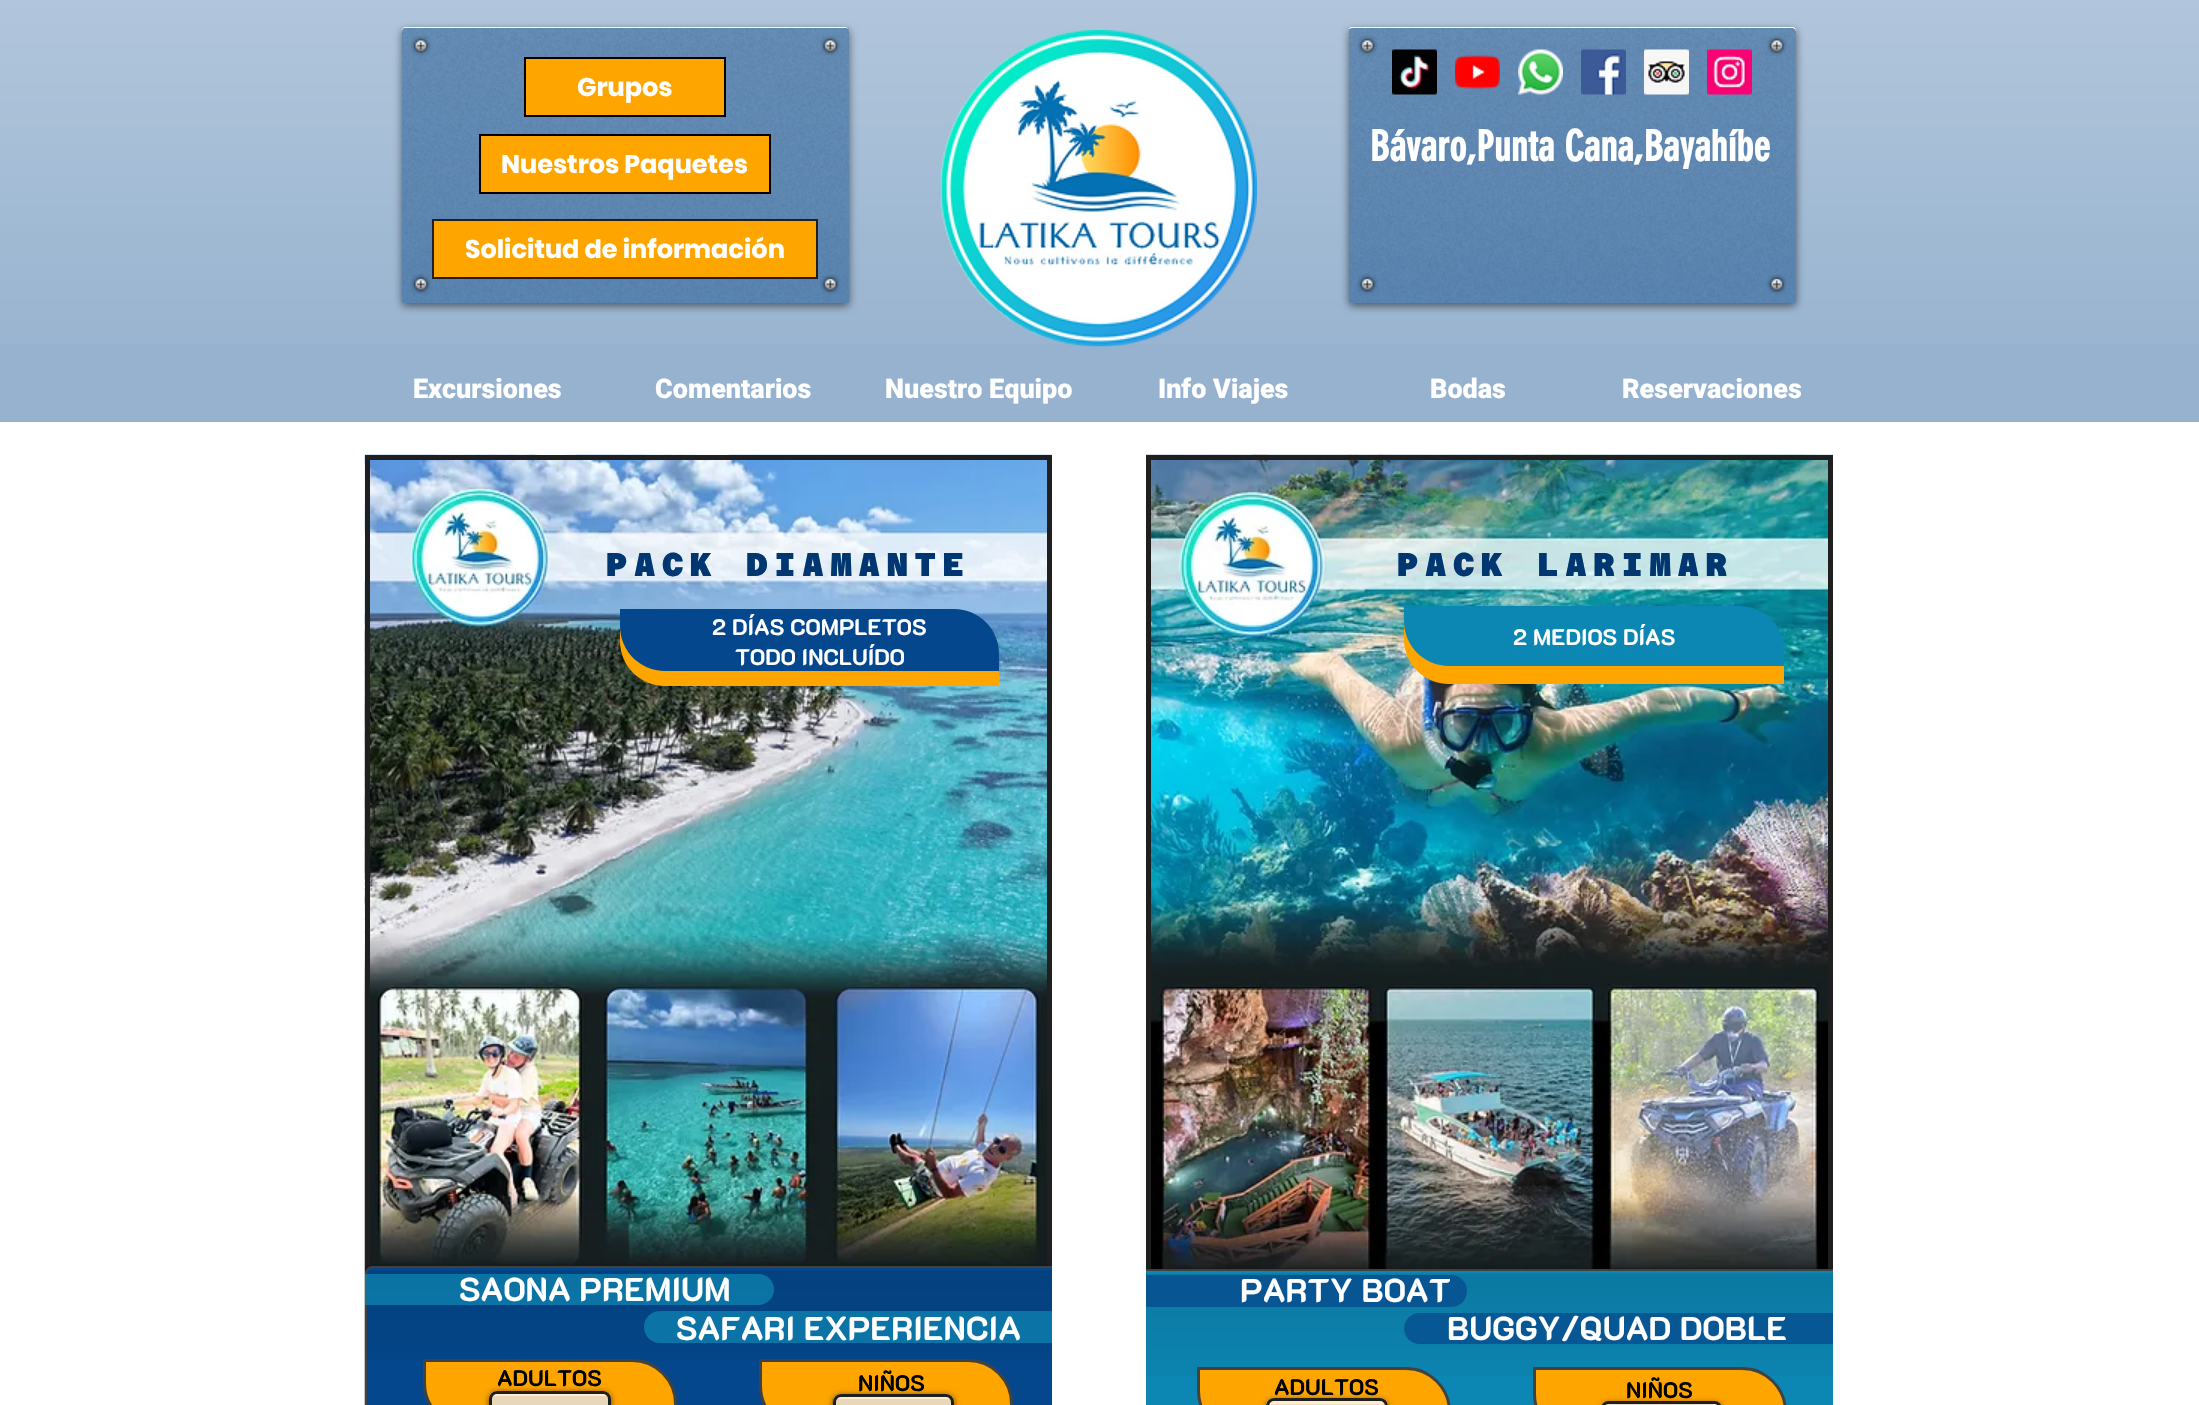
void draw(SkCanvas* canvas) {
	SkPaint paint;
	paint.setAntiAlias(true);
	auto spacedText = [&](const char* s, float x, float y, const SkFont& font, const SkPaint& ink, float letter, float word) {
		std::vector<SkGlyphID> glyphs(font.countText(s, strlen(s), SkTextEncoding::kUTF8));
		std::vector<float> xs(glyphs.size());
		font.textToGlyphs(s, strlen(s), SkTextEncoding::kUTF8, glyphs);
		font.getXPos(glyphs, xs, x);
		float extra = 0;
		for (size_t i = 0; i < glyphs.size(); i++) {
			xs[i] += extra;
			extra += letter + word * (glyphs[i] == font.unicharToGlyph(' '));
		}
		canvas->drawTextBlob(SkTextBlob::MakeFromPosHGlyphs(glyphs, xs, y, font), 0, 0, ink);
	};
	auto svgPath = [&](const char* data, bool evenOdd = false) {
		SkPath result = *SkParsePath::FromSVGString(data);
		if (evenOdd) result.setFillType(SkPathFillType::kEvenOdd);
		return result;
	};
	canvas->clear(0xffffffff);
	paint.setColor(0xff96b2cf);
	canvas->drawRect(SkRect::MakeXYWH(0, 0, 2199, 422), paint);
	canvas->drawImageRect(SkImages::DeferredFromEncodedData(SkData::MakeFromFileName("img1.png")), SkRect::MakeXYWH(0, 0, 2199, 344), SkSamplingOptions());
	canvas->save();
	canvas->clipPath(svgPath("M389 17H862V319H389ZM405 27H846C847.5 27 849 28.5 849 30V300C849 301.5 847.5 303 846 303H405C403.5 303 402 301.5 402 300V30C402 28.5 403.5 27 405 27Z", true), true);
	paint.setColor(0x87000000);
	paint.setMaskFilter(SkMaskFilter::MakeBlur(kNormal_SkBlurStyle, 4));
	canvas->drawRoundRect(SkRect::MakeXYWH(402, 30, 447, 276), 3, 3, paint);
	paint.setMaskFilter(nullptr);
	canvas->restore();
	paint.setColor(0x7004478c);
	canvas->drawRoundRect(SkRect::MakeXYWH(402, 27, 447, 276), 3, 3, paint);
	canvas->drawImageRect(SkImages::DeferredFromEncodedData(SkData::MakeFromFileName("img2.png")), SkRect::MakeXYWH(402, 27, 447, 276), SkSamplingOptions());
	paint.setColor(0xebffffff);
	canvas->drawPath(svgPath("M405 28H846C848 28 849 30 849 32L848 28L846 27H405C402 27 402 30 402 32C402 30 403 28 405 28Z"), paint);
	canvas->drawImageRect(SkImages::DeferredFromEncodedData(SkData::MakeFromFileName("img3.png")), SkRect::MakeXYWH(410, 35, 21, 21), SkSamplingOptions());
	canvas->drawImageRect(SkImages::DeferredFromEncodedData(SkData::MakeFromFileName("img4.png")), SkRect::MakeXYWH(820, 35, 21, 21), SkSamplingOptions());
	paint.setColor(0xffffa500);
	canvas->drawRect(SkRect::MakeXYWH(525, 58, 200, 58), paint);
	paint.setStroke(true);
	paint.setStrokeWidth(2);
	paint.setColor(0xff000000);
	canvas->drawRect(SkRect::MakeXYWH(525, 58, 200, 58), paint);
	SkFont f1(fontMgr->matchFamilyStyle("Poppins", SkFontStyle::Bold()), 25.5);
	f1.setSubpixel(true);
	paint.setStroke(false);
	paint.setColor(0xffffffff);
	canvas->drawString("Grupos", 577, 96, f1, paint);
	paint.setColor(0xffffa500);
	canvas->drawRect(SkRect::MakeXYWH(480, 135, 290, 58), paint);
	paint.setStroke(true);
	paint.setColor(0xff000000);
	canvas->drawRect(SkRect::MakeXYWH(480, 135, 290, 58), paint);
	paint.setStroke(false);
	paint.setColor(0xffffffff);
	canvas->drawString("Nuestros Paquetes", 501, 173, f1, paint);
	paint.setColor(0xffffa500);
	canvas->drawRect(SkRect::MakeXYWH(433, 220, 384, 58), paint);
	paint.setStroke(true);
	paint.setColor(0xff1f1f1f);
	canvas->drawRect(SkRect::MakeXYWH(433, 220, 384, 58), paint);
	paint.setStroke(false);
	paint.setColor(0xffffffff);
	canvas->drawString("Solicitud de información", 465, 258, f1, paint);
	canvas->drawImageRect(SkImages::DeferredFromEncodedData(SkData::MakeFromFileName("img5.png")), SkRect::MakeXYWH(410, 274, 21, 21), SkSamplingOptions());
	canvas->drawImageRect(SkImages::DeferredFromEncodedData(SkData::MakeFromFileName("img6.png")), SkRect::MakeXYWH(820, 274, 21, 21), SkSamplingOptions());
	canvas->drawImageRect(SkImages::DeferredFromEncodedData(SkData::MakeFromFileName("img7.png")), SkRect::MakeXYWH(940, 30, 317, 317), SkSamplingOptions());
	canvas->save();
	canvas->clipPath(svgPath("M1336 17H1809V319H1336ZM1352 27H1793C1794.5 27 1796 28.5 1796 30V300C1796 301.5 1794.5 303 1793 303H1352C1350.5 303 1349 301.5 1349 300V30C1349 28.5 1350.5 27 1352 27Z", true), true);
	paint.setColor(0x87000000);
	paint.setMaskFilter(SkMaskFilter::MakeBlur(kNormal_SkBlurStyle, 4));
	canvas->drawRoundRect(SkRect::MakeXYWH(1349, 30, 447, 276), 3, 3, paint);
	paint.setMaskFilter(nullptr);
	canvas->restore();
	paint.setColor(0x7004478c);
	canvas->drawRoundRect(SkRect::MakeXYWH(1349, 27, 447, 276), 3, 3, paint);
	canvas->drawImageRect(SkImages::DeferredFromEncodedData(SkData::MakeFromFileName("img8.png")), SkRect::MakeXYWH(1349, 27, 446, 276), SkSamplingOptions());
	paint.setColor(0xebffffff);
	canvas->drawPath(svgPath("M1352 28H1792C1794 28 1796 30 1796 32C1796 30 1796 27 1793 27H1351L1349 28V29Z"), paint);
	canvas->drawImageRect(SkImages::DeferredFromEncodedData(SkData::MakeFromFileName("img9.png")), SkRect::MakeXYWH(1357, 35, 21, 21), SkSamplingOptions());
	canvas->drawImageRect(SkImages::DeferredFromEncodedData(SkData::MakeFromFileName("img10.png")), SkRect::MakeXYWH(1766, 35, 21, 21), SkSamplingOptions());
	canvas->drawImageRect(SkImages::DeferredFromEncodedData(SkData::MakeFromFileName("img11.png")), SkRect::MakeXYWH(1392, 49, 45, 46), SkSamplingOptions());
	canvas->drawImageRect(SkImages::DeferredFromEncodedData(SkData::MakeFromFileName("img12.png")), SkRect::MakeXYWH(1455, 55, 45, 34), SkSamplingOptions());
	canvas->drawImageRect(SkImages::DeferredFromEncodedData(SkData::MakeFromFileName("img13.png")), SkRect::MakeXYWH(1518, 49, 45, 46), SkSamplingOptions());
	canvas->drawImageRect(SkImages::DeferredFromEncodedData(SkData::MakeFromFileName("img14.png")), SkRect::MakeXYWH(1581, 49, 45, 46), SkSamplingOptions());
	canvas->drawImageRect(SkImages::DeferredFromEncodedData(SkData::MakeFromFileName("img15.png")), SkRect::MakeXYWH(1644, 49, 45, 46), SkSamplingOptions());
	canvas->drawImageRect(SkImages::DeferredFromEncodedData(SkData::MakeFromFileName("img16.png")), SkRect::MakeXYWH(1707, 49, 45, 46), SkSamplingOptions());
	SkFont f2(fontMgr->matchFamilyStyle("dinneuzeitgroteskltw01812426", SkFontStyle::Bold()), 42);
	f2.setSubpixel(true);
	paint.setColor(0xffffffff);
	canvas->drawString("Bávaro,Punta Cana,Bayahíbe", 1370, 161, f2, paint);
	canvas->drawImageRect(SkImages::DeferredFromEncodedData(SkData::MakeFromFileName("img17.png")), SkRect::MakeXYWH(1357, 274, 21, 21), SkSamplingOptions());
	canvas->drawImageRect(SkImages::DeferredFromEncodedData(SkData::MakeFromFileName("img18.png")), SkRect::MakeXYWH(1766, 274, 21, 21), SkSamplingOptions());
	SkFont f3(fontMgr->matchFamilyStyle("Roboto", SkFontStyle(900, SkFontStyle::kNormal_Width, SkFontStyle::kUpright_Slant)), 27);
	f3.setSubpixel(true);
	canvas->drawString("Excursiones", 413, 398, f3, paint);
	canvas->drawString("Comentarios", 655, 398, f3, paint);
	canvas->drawString("Nuestro Equipo", 885, 398, f3, paint);
	canvas->drawString("Info Viajes", 1158, 398, f3, paint);
	canvas->drawString("Bodas", 1430, 398, f3, paint);
	canvas->drawString("Reservaciones", 1622, 398, f3, paint);
	canvas->drawImageRect(SkImages::DeferredFromEncodedData(SkData::MakeFromFileName("img19.png")), SkRect::MakeXYWH(364, 454, 688, 951), SkSamplingOptions());
	paint.setStroke(true);
	paint.setStrokeWidth(5);
	paint.setColor(0xff1f1f1f);
	canvas->drawRect(SkRect::MakeXYWH(367.5, 457.5, 682, 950), paint);
	SkFont f4(fontMgr->matchFamilyStyle("Azeret Mono", SkFontStyle(900, SkFontStyle::kNormal_Width, SkFontStyle::kUpright_Slant)), 33);
	f4.setSubpixel(true);
	paint.setStroke(false);
	paint.setColor(0xff003770);
	spacedText("PACK DIAMANTE", 606, 576, f4, paint, 6.6, 0);
	paint.setColor(0xffffa500);
	canvas->drawPath(svgPath("M620 617H954C979 617 999 637 999 662V686H665C640 686 620 666 620 641Z"), paint);
	paint.setColor(0xff04478c);
	canvas->drawPath(svgPath("M620 609H954C979 609 999 629 999 654V671H665C640 671 620 651 620 626Z"), paint);
	SkFont f5(fontMgr->matchFamilyStyle("K2D", SkFontStyle::Bold()), 22.5);
	f5.setSubpixel(true);
	paint.setColor(0xffffffff);
	canvas->drawString("2 DÍAS COMPLETOS", 712, 635, f5, paint);
	canvas->drawString("TODO INCLUÍDO", 735, 665, f5, paint);
	canvas->save();
	canvas->clipRect(SkRect::MakeXYWH(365, 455, 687, 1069));
	paint.setColor(0x99000000);
	paint.setMaskFilter(SkMaskFilter::MakeBlur(kNormal_SkBlurStyle, 3));
	canvas->drawRoundRect(SkRect::MakeXYWH(365, 1268, 726, 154), 8, 8, paint);
	paint.setMaskFilter(nullptr);
	canvas->restore();
	paint.setColor(0xff04478c);
	canvas->drawPath(svgPath("M373 1266H1052V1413H365V1274C365 1269.5 368.5 1266 373 1266Z"), paint);
	canvas->drawImageRect(SkImages::DeferredFromEncodedData(SkData::MakeFromFileName("img20.png")), SkRect::MakeXYWH(365, 1270, 687, 91), SkSamplingOptions());
	canvas->save();
	canvas->clipRect(SkRect::MakeXYWH(365, 455, 687, 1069));
	paint.setStroke(true);
	paint.setStrokeWidth(2);
	paint.setColor(0xff414141);
	canvas->drawRoundRect(SkRect::MakeXYWH(366, 1267, 724, 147), 7, 7, paint);
	canvas->restore();
	paint.setStroke(false);
	paint.setColor(0xb50c86b3);
	canvas->drawPath(svgPath("M365 1274H758.5C767 1274 774 1281 774 1289.5C774 1298 767 1305 758.5 1305H365Z"), paint);
	SkFont f6(fontMgr->matchFamilyStyle("K2D", SkFontStyle::Bold()), 33);
	f6.setSubpixel(true);
	paint.setColor(0xffffffff);
	canvas->drawString("SAONA PREMIUM", 459, 1301, f6, paint);
	paint.setColor(0xb50c86b3);
	canvas->drawPath(svgPath("M660 1311H1052V1343H660C651 1343 644 1336 644 1327C644 1318 651 1311 660 1311Z"), paint);
	paint.setColor(0xffffffff);
	canvas->drawString("SAFARI EXPERIENCIA", 676, 1340, f6, paint);
	paint.setColor(0xffffa500);
	canvas->drawPath(svgPath("M424.5 1360.5H632C656 1360.5 675.5 1380 675.5 1404V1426.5H468C444 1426.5 424.5 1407 424.5 1383Z"), paint);
	paint.setStroke(true);
	paint.setStrokeWidth(3);
	paint.setColor(0xff414141);
	canvas->drawPath(svgPath("M424.5 1360.5H632C656 1360.5 675.5 1380 675.5 1404V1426.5H468C444 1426.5 424.5 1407 424.5 1383Z"), paint);
	canvas->save();
	canvas->clipPath(svgPath("M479 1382H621V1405H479ZM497 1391H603C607.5 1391 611 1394.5 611 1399V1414C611 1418.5 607.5 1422 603 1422H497C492.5 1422 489 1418.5 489 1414V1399C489 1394.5 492.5 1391 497 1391Z", true), true);
	paint.setStroke(false);
	paint.setColor(0x99000000);
	paint.setMaskFilter(SkMaskFilter::MakeBlur(kNormal_SkBlurStyle, 3));
	canvas->drawRoundRect(SkRect::MakeXYWH(489, 1392, 122, 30), 8, 8, paint);
	paint.setMaskFilter(nullptr);
	canvas->restore();
	paint.setColor(0xff000000);
	canvas->drawString("ADULTOS", 497, 1386, f5, paint);
	paint.setColor(0xccffffff);
	canvas->drawRoundRect(SkRect::MakeXYWH(489, 1391, 122, 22), 8, 8, paint);
	paint.setColor(0x17000000);
	canvas->drawRect(SkRect::MakeXYWH(489, 1396, 122, 9), paint);
	paint.setStroke(true);
	paint.setColor(0xff1f1f1f);
	canvas->drawRoundRect(SkRect::MakeXYWH(490.5, 1392.5, 119, 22), 6.5, 6.5, paint);
	paint.setStroke(false);
	paint.setColor(0xffffa500);
	canvas->drawPath(svgPath("M760.5 1360.5H968C992 1360.5 1011.5 1380 1011.5 1404V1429.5H804C780 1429.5 760.5 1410 760.5 1386Z"), paint);
	paint.setStroke(true);
	paint.setColor(0xff414141);
	canvas->drawPath(svgPath("M760.5 1360.5H968C992 1360.5 1011.5 1380 1011.5 1404V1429.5H804C780 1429.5 760.5 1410 760.5 1386Z"), paint);
	canvas->save();
	canvas->clipPath(svgPath("M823 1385H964V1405H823ZM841 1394H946C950.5 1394 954 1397.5 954 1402V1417C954 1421.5 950.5 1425 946 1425H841C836.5 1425 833 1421.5 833 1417V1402C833 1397.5 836.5 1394 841 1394Z", true), true);
	paint.setStroke(false);
	paint.setColor(0x99000000);
	paint.setMaskFilter(SkMaskFilter::MakeBlur(kNormal_SkBlurStyle, 3));
	canvas->drawRoundRect(SkRect::MakeXYWH(833, 1395, 121, 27), 8, 8, paint);
	paint.setMaskFilter(nullptr);
	canvas->restore();
	paint.setColor(0xff000000);
	canvas->drawString("NIÑOS", 858, 1391, f5, paint);
	paint.setColor(0xccffffff);
	canvas->drawRoundRect(SkRect::MakeXYWH(833, 1394, 121, 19), 8, 8, paint);
	paint.setColor(0x17000000);
	canvas->drawRect(SkRect::MakeXYWH(832, 1399, 122, 6), paint);
	paint.setStroke(true);
	paint.setColor(0xff1f1f1f);
	canvas->drawRoundRect(SkRect::MakeXYWH(834.5, 1395.5, 118, 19), 6.5, 6.5, paint);
	canvas->drawImageRect(SkImages::DeferredFromEncodedData(SkData::MakeFromFileName("img21.png")), SkRect::MakeXYWH(1146, 454, 687, 815), SkSamplingOptions());
	paint.setStrokeWidth(5);
	canvas->drawRect(SkRect::MakeXYWH(1148.5, 457.5, 682, 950), paint);
	paint.setStroke(false);
	paint.setColor(0xff003770);
	spacedText("PACK LARIMAR", 1397, 576, f4, paint, 6.6, 0);
	paint.setColor(0xffffa500);
	canvas->drawPath(svgPath("M1404 617H1739C1764 617 1784 637 1784 662V684H1449C1424 684 1404 664 1404 639Z"), paint);
	paint.setColor(0xff0c86b3);
	canvas->drawPath(svgPath("M1404 606H1739C1764 606 1784 626 1784 651V666H1449C1424 666 1404 646 1404 621Z"), paint);
	paint.setColor(0xffffffff);
	canvas->drawString("2 MEDIOS DÍAS", 1513, 645, f5, paint);
	canvas->save();
	canvas->clipRect(SkRect::MakeXYWH(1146, 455, 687, 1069));
	paint.setColor(0x99000000);
	paint.setMaskFilter(SkMaskFilter::MakeBlur(kNormal_SkBlurStyle, 3));
	canvas->drawRoundRect(SkRect::MakeXYWH(1115, 1271, 766, 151), 8, 8, paint);
	paint.setMaskFilter(nullptr);
	canvas->restore();
	paint.setColor(0xff0c86b3);
	canvas->drawRect(SkRect::MakeXYWH(1146, 1271, 687, 134), paint);
	canvas->drawImageRect(SkImages::DeferredFromEncodedData(SkData::MakeFromFileName("img22.png")), SkRect::MakeXYWH(1146, 1273, 687, 103), SkSamplingOptions());
	canvas->save();
	canvas->clipRect(SkRect::MakeXYWH(1146, 455, 687, 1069));
	paint.setStroke(true);
	paint.setStrokeWidth(2);
	paint.setColor(0xff414141);
	canvas->drawRoundRect(SkRect::MakeXYWH(1116, 1270, 764, 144), 7, 7, paint);
	canvas->restore();
	paint.setStroke(false);
	paint.setColor(0xb504478c);
	canvas->drawPath(svgPath("M1146 1275H1451C1460 1275 1467 1282 1467 1291C1467 1300 1460 1307 1451 1307H1146Z"), paint);
	paint.setColor(0xffffffff);
	canvas->drawString("PARTY BOAT", 1240, 1302, f6, paint);
	paint.setColor(0xb504478c);
	canvas->drawPath(svgPath("M1419.5 1313H1833V1344H1419.5C1411 1344 1404 1337 1404 1328.5C1404 1320 1411 1313 1419.5 1313Z"), paint);
	paint.setColor(0xffffffff);
	canvas->drawString("BUGGY/QUAD DOBLE", 1447, 1340, f6, paint);
	paint.setColor(0xffffa500);
	canvas->drawPath(svgPath("M1198.5 1368.5H1406C1430 1368.5 1449.5 1388 1449.5 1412V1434.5H1242C1218 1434.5 1198.5 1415 1198.5 1391Z"), paint);
	paint.setStroke(true);
	paint.setStrokeWidth(3);
	paint.setColor(0xff414141);
	canvas->drawPath(svgPath("M1198.5 1368.5H1406C1430 1368.5 1449.5 1388 1449.5 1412V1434.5H1242C1218 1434.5 1198.5 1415 1198.5 1391Z"), paint);
	canvas->save();
	canvas->clipPath(svgPath("M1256 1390H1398V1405H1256ZM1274 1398H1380C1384.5 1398 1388 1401.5 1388 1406V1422C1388 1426.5 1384.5 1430 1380 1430H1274C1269.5 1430 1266 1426.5 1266 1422V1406C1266 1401.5 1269.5 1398 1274 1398Z", true), true);
	paint.setStroke(false);
	paint.setColor(0x99000000);
	paint.setMaskFilter(SkMaskFilter::MakeBlur(kNormal_SkBlurStyle, 3));
	canvas->drawRoundRect(SkRect::MakeXYWH(1266, 1400, 122, 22), 8, 8, paint);
	paint.setMaskFilter(nullptr);
	canvas->restore();
	paint.setColor(0xff000000);
	canvas->drawString("ADULTOS", 1274, 1395, f5, paint);
	paint.setColor(0xccffffff);
	canvas->drawRoundRect(SkRect::MakeXYWH(1266, 1398, 122, 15), 8, 8, paint);
	paint.setColor(0x12000000);
	canvas->drawRect(SkRect::MakeXYWH(1266, 1404, 121, 1), paint);
	paint.setStroke(true);
	paint.setColor(0xff1f1f1f);
	canvas->drawRoundRect(SkRect::MakeXYWH(1267.5, 1399.5, 119, 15), 6.5, 6.5, paint);
	paint.setStroke(false);
	paint.setColor(0xffffa500);
	canvas->drawPath(svgPath("M1534.5 1368.5H1742C1766 1368.5 1785.5 1388 1785.5 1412V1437.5H1578C1554 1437.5 1534.5 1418 1534.5 1394Z"), paint);
	paint.setStroke(true);
	paint.setColor(0xff414141);
	canvas->drawPath(svgPath("M1534.5 1368.5H1742C1766 1368.5 1785.5 1388 1785.5 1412V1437.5H1578C1554 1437.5 1534.5 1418 1534.5 1394Z"), paint);
	paint.setStroke(false);
	paint.setColor(0x99000000);
	paint.setMaskFilter(SkMaskFilter::MakeBlur(kNormal_SkBlurStyle, 3));
	canvas->drawRoundRect(SkRect::MakeXYWH(1601, 1403, 121, 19), 8, 8, paint);
	paint.setMaskFilter(nullptr);
	paint.setColor(0xff000000);
	canvas->drawString("NIÑOS", 1626, 1398, f5, paint);
	paint.setColor(0xccffffff);
	canvas->drawRoundRect(SkRect::MakeXYWH(1602.5, 1402.5, 118, 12), 6.5, 6.5, paint);
	paint.setStroke(true);
	paint.setColor(0xff1f1f1f);
	canvas->drawRoundRect(SkRect::MakeXYWH(1602.5, 1402.5, 118, 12), 6.5, 6.5, paint);
}
